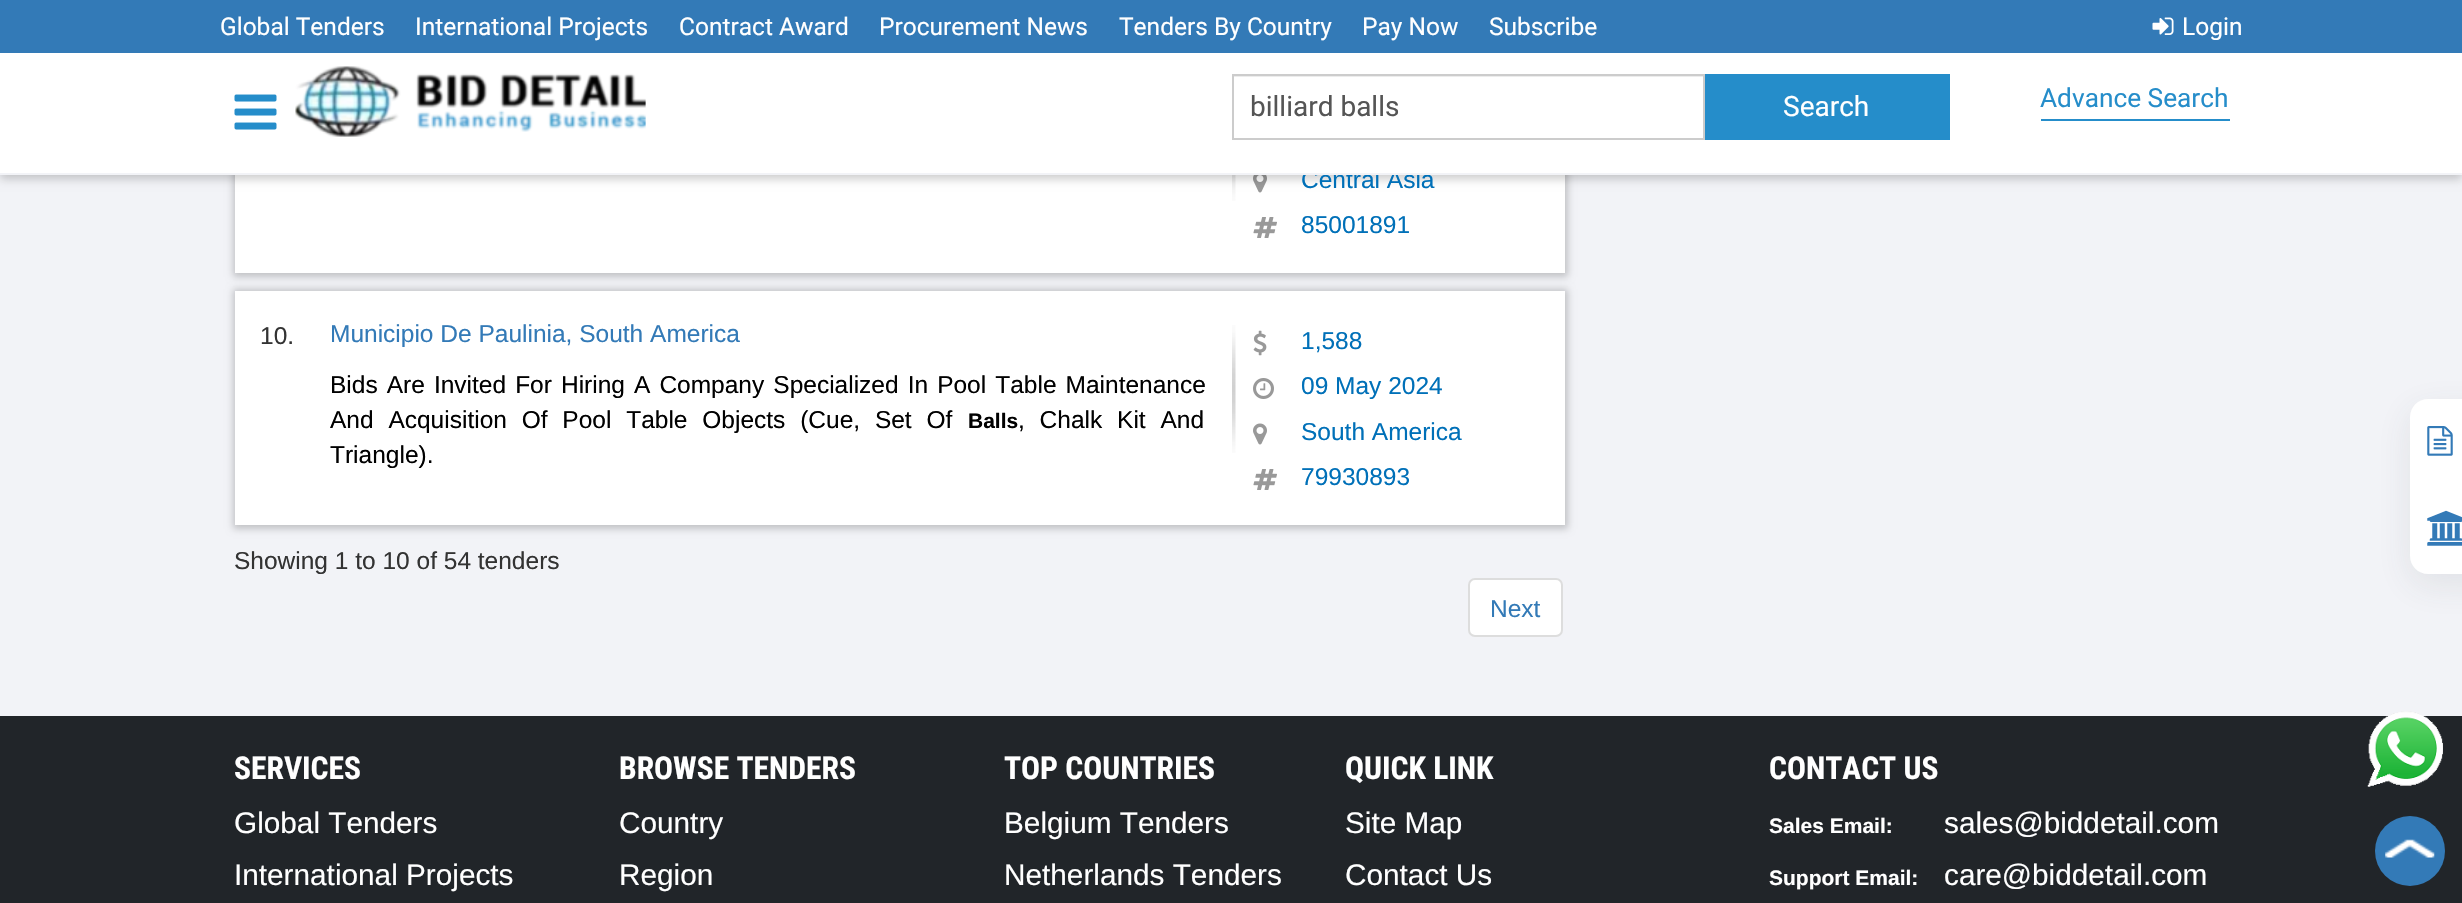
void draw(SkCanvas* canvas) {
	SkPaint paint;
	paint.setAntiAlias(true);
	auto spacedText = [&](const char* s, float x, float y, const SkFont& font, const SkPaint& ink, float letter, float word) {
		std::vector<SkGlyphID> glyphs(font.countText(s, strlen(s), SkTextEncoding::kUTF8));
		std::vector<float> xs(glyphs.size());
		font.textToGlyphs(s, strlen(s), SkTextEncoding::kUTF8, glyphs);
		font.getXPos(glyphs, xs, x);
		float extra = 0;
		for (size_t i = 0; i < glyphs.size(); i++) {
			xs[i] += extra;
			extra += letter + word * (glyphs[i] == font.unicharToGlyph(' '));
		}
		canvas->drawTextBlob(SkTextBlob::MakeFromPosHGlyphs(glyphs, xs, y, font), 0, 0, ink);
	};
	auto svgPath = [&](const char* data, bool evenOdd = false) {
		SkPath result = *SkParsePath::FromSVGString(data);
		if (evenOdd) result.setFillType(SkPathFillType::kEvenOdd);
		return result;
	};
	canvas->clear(0xff212529);
	paint.setColor(0xfff2f3f7);
	canvas->drawRect(SkRect::MakeXYWH(0, 175, 2462, 541), paint);
	paint.setColor(0x33000000);
	paint.setMaskFilter(SkMaskFilter::MakeBlur(kNormal_SkBlurStyle, 3.5));
	canvas->drawRect(SkRect::MakeXYWH(233, 37, 1335, 240), paint);
	paint.setMaskFilter(nullptr);
	paint.setColor(0xffffffff);
	canvas->drawRect(SkRect::MakeXYWH(235, 175, 1330, 98), paint);
	canvas->drawImageRect(SkImages::DeferredFromEncodedData(SkData::MakeFromFileName("img4.png")), SkRect::MakeXYWH(1232, 175, 4, 26), SkSamplingOptions());
	canvas->drawImageRect(SkImages::DeferredFromEncodedData(SkData::MakeFromFileName("img5.png")), SkRect::MakeXYWH(1253, 175, 14, 18), SkSamplingOptions());
	paint.setColor(0x33000000);
	paint.setMaskFilter(SkMaskFilter::MakeBlur(kNormal_SkBlurStyle, 4.5));
	canvas->drawRect(SkRect::MakeXYWH(0, 4, 2462, 175), paint);
	paint.setMaskFilter(nullptr);
	SkFont f1(fontMgr->matchFamilyStyle("Liberation Sans", SkFontStyle::Normal()), 24.5);
	f1.setSubpixel(true);
	paint.setColor(0xff0070b8);
	canvas->drawString("Central Asia", 1301, 188, f1, paint);
	paint.setColor(0xffffffff);
	canvas->drawRect(SkRect::MakeXYWH(0, 53, 2462, 120), paint);
	paint.setColor(0xfff2f3f7);
	canvas->drawRect(SkRect::MakeXYWH(0, 173, 2462, 2), paint);
	paint.setColor(0xff337ab7);
	canvas->drawRect(SkRect::MakeXYWH(0, 0, 2462, 53), paint);
	SkFont f2(fontMgr->matchFamilyStyle("Roboto", SkFontStyle::Normal()), 24.5);
	f2.setSubpixel(true);
	paint.setColor(0xffffffff);
	canvas->drawString("Global Tenders", 220, 35, f2, paint);
	canvas->drawString("International Projects", 415, 35, f2, paint);
	canvas->drawString("Contract Award", 679, 35, f2, paint);
	canvas->drawString("Procurement News", 879, 35, f2, paint);
	canvas->drawString("Tenders By Country", 1119, 35, f2, paint);
	canvas->drawString("Pay Now", 1362, 35, f2, paint);
	canvas->drawString("Subscribe", 1489, 35, f2, paint);
	canvas->drawImageRect(SkImages::DeferredFromEncodedData(SkData::MakeFromFileName("img1.png")), SkRect::MakeXYWH(2152, 17, 22, 18), SkSamplingOptions());
	canvas->drawString("Login", 2182, 35, f2, paint);
	canvas->drawImageRect(SkImages::DeferredFromEncodedData(SkData::MakeFromFileName("img2.png")), SkRect::MakeXYWH(234, 94, 43, 36), SkSamplingOptions());
	canvas->drawImageRect(SkImages::DeferredFromEncodedData(SkData::MakeFromFileName("img3.png")), SkRect::MakeXYWH(295, 66, 351, 71), SkSamplingOptions());
	paint.setColor(0xffececec);
	canvas->drawRect(SkRect::MakeXYWH(1234, 76, 469, 1), paint);
	paint.setStroke(true);
	paint.setStrokeWidth(2);
	paint.setColor(0xffcccccc);
	canvas->drawRect(SkRect::MakeXYWH(1233, 75, 471, 64), paint);
	SkFont f3(fontMgr->matchFamilyStyle("Roboto", SkFontStyle::Normal()), 28);
	f3.setSubpixel(true);
	paint.setStroke(false);
	paint.setColor(0xff555555);
	canvas->drawString("billiard balls", 1250, 116, f3, paint);
	paint.setColor(0xff258dca);
	canvas->drawRect(SkRect::MakeXYWH(1705, 74, 245, 66), paint);
	paint.setColor(0xffffffff);
	canvas->drawString("Search", 1783, 116, f3, paint);
	paint.setColor(0xff258dca);
	canvas->drawRect(SkRect::MakeXYWH(2041, 119, 189, 2), paint);
	SkFont f4(fontMgr->matchFamilyStyle("Roboto", SkFontStyle::Normal()), 26.25);
	f4.setSubpixel(true);
	canvas->drawString("Advance Search", 2040, 107, f4, paint);
	canvas->drawImageRect(SkImages::DeferredFromEncodedData(SkData::MakeFromFileName("img6.png")), SkRect::MakeXYWH(1253, 217, 24, 21), SkSamplingOptions());
	paint.setColor(0xff0070b8);
	canvas->drawString("85001891", 1301, 233, f1, paint);
	paint.setColor(0x33000000);
	paint.setMaskFilter(SkMaskFilter::MakeBlur(kNormal_SkBlurStyle, 3.5));
	canvas->drawRect(SkRect::MakeXYWH(233, 289, 1335, 240), paint);
	paint.setMaskFilter(nullptr);
	paint.setColor(0xffffffff);
	canvas->drawRect(SkRect::MakeXYWH(235, 291, 1330, 234), paint);
	paint.setColor(0xff333333);
	canvas->drawString("10.", 260, 344, f1, paint);
	paint.setColor(0xff337ab7);
	canvas->drawString("Municipio De Paulinia, South America", 330, 342, f1, paint);
	paint.setColor(0xff000000);
	spacedText("Bids Are Invited For Hiring A Company Specialized In Pool Table Maintenance", 330, 393, f1, paint, 0, 2.25);
	spacedText("And Acquisition Of Pool Table Objects (Cue, Set Of", 330, 428, f1, paint, 0, 8);
	SkFont f5(fontMgr->matchFamilyStyle("Liberation Sans", SkFontStyle::Bold()), 21);
	f5.setSubpixel(true);
	canvas->drawString("Balls", 968, 428, f5, paint);
	spacedText(", Chalk Kit And", 1018, 428, f1, paint, 0, 8);
	canvas->drawString("Triangle).", 330, 463, f1, paint);
	canvas->drawImageRect(SkImages::DeferredFromEncodedData(SkData::MakeFromFileName("img7.png")), SkRect::MakeXYWH(1232, 325, 4, 128), SkSamplingOptions());
	canvas->drawImageRect(SkImages::DeferredFromEncodedData(SkData::MakeFromFileName("img8.png")), SkRect::MakeXYWH(1253, 330, 14, 26), SkSamplingOptions());
	paint.setColor(0xff0070b8);
	canvas->drawString("1,588", 1301, 349, f1, paint);
	canvas->drawImageRect(SkImages::DeferredFromEncodedData(SkData::MakeFromFileName("img9.png")), SkRect::MakeXYWH(1253, 378, 21, 21), SkSamplingOptions());
	canvas->drawString("09 May 2024", 1301, 394, f1, paint);
	canvas->drawImageRect(SkImages::DeferredFromEncodedData(SkData::MakeFromFileName("img10.png")), SkRect::MakeXYWH(1253, 423, 14, 22), SkSamplingOptions());
	canvas->drawString("South America", 1301, 440, f1, paint);
	canvas->drawImageRect(SkImages::DeferredFromEncodedData(SkData::MakeFromFileName("img6.png")), SkRect::MakeXYWH(1253, 469, 24, 21), SkSamplingOptions());
	canvas->drawString("79930893", 1301, 485, f1, paint);
	paint.setColor(0xff333333);
	canvas->drawString("Showing 1 to 10 of 54 tenders", 234, 569, f1, paint);
	paint.setColor(0xffffffff);
	canvas->drawRoundRect(SkRect::MakeXYWH(1469, 579, 93, 57), 6, 6, paint);
	paint.setStroke(true);
	paint.setColor(0xffdddddd);
	canvas->drawRoundRect(SkRect::MakeXYWH(1469, 579, 93, 57), 6, 6, paint);
	paint.setStroke(false);
	paint.setColor(0xff337ab7);
	canvas->drawString("Next", 1490, 617, f1, paint);
	paint.setColor(0x1a36424b);
	paint.setMaskFilter(SkMaskFilter::MakeBlur(kNormal_SkBlurStyle, 17.5));
	canvas->drawRoundRect(SkRect::MakeXYWH(2410, 410, 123, 175), 18, 18, paint);
	paint.setMaskFilter(nullptr);
	paint.setColor(0xffffffff);
	canvas->drawPath(svgPath("M2428 399H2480V574H2428C2418 574 2410 566 2410 556V417C2410 407 2418 399 2428 399Z"), paint);
	canvas->drawImageRect(SkImages::DeferredFromEncodedData(SkData::MakeFromFileName("img11.png")), SkRect::MakeXYWH(2427, 426, 26, 30), SkSamplingOptions());
	canvas->drawImageRect(SkImages::DeferredFromEncodedData(SkData::MakeFromFileName("img12.png")), SkRect::MakeXYWH(2427, 510, 35, 36), SkSamplingOptions());
	SkFont f6(fontMgr->matchFamilyStyle("Roboto Condensed", SkFontStyle::Bold()), 31.5);
	f6.setSubpixel(true);
	canvas->drawString("SERVICES", 234, 779, f6, paint);
	SkFont f7(fontMgr->matchFamilyStyle("Liberation Sans", SkFontStyle::Normal()), 29.75);
	f7.setSubpixel(true);
	canvas->drawString("Global Tenders", 234, 833, f7, paint);
	canvas->drawString("International Projects", 234, 885, f7, paint);
	canvas->drawString("BROWSE TENDERS", 619, 779, f6, paint);
	canvas->drawString("Country", 619, 833, f7, paint);
	canvas->drawString("Region", 619, 885, f7, paint);
	canvas->drawString("TOP COUNTRIES", 1004, 779, f6, paint);
	canvas->drawString("Belgium Tenders", 1004, 833, f7, paint);
	canvas->drawString("Netherlands Tenders", 1004, 885, f7, paint);
	canvas->drawString("QUICK LINK", 1345, 779, f6, paint);
	canvas->drawString("Site Map", 1345, 833, f7, paint);
	canvas->drawString("Contact Us", 1345, 885, f7, paint);
	canvas->drawString("CONTACT US", 1769, 779, f6, paint);
	canvas->drawString("Sales Email:", 1769, 833, f5, paint);
	canvas->drawString("sales@biddetail.com", 1944, 833, f7, paint);
	canvas->drawString("Support Email:", 1769, 885, f5, paint);
	canvas->drawString("care@biddetail.com", 1944, 885, f7, paint);
	canvas->drawImageRect(SkImages::DeferredFromEncodedData(SkData::MakeFromFileName("img13.png")), SkRect::MakeXYWH(2367, 711, 76, 76), SkSamplingOptions());
	paint.setColor(0xff337ab7);
	canvas->drawCircle(2410, 851, 35, paint);
	canvas->drawImageRect(SkImages::DeferredFromEncodedData(SkData::MakeFromFileName("img14.png")), SkRect::MakeXYWH(2385, 839, 50, 19), SkSamplingOptions());
}
